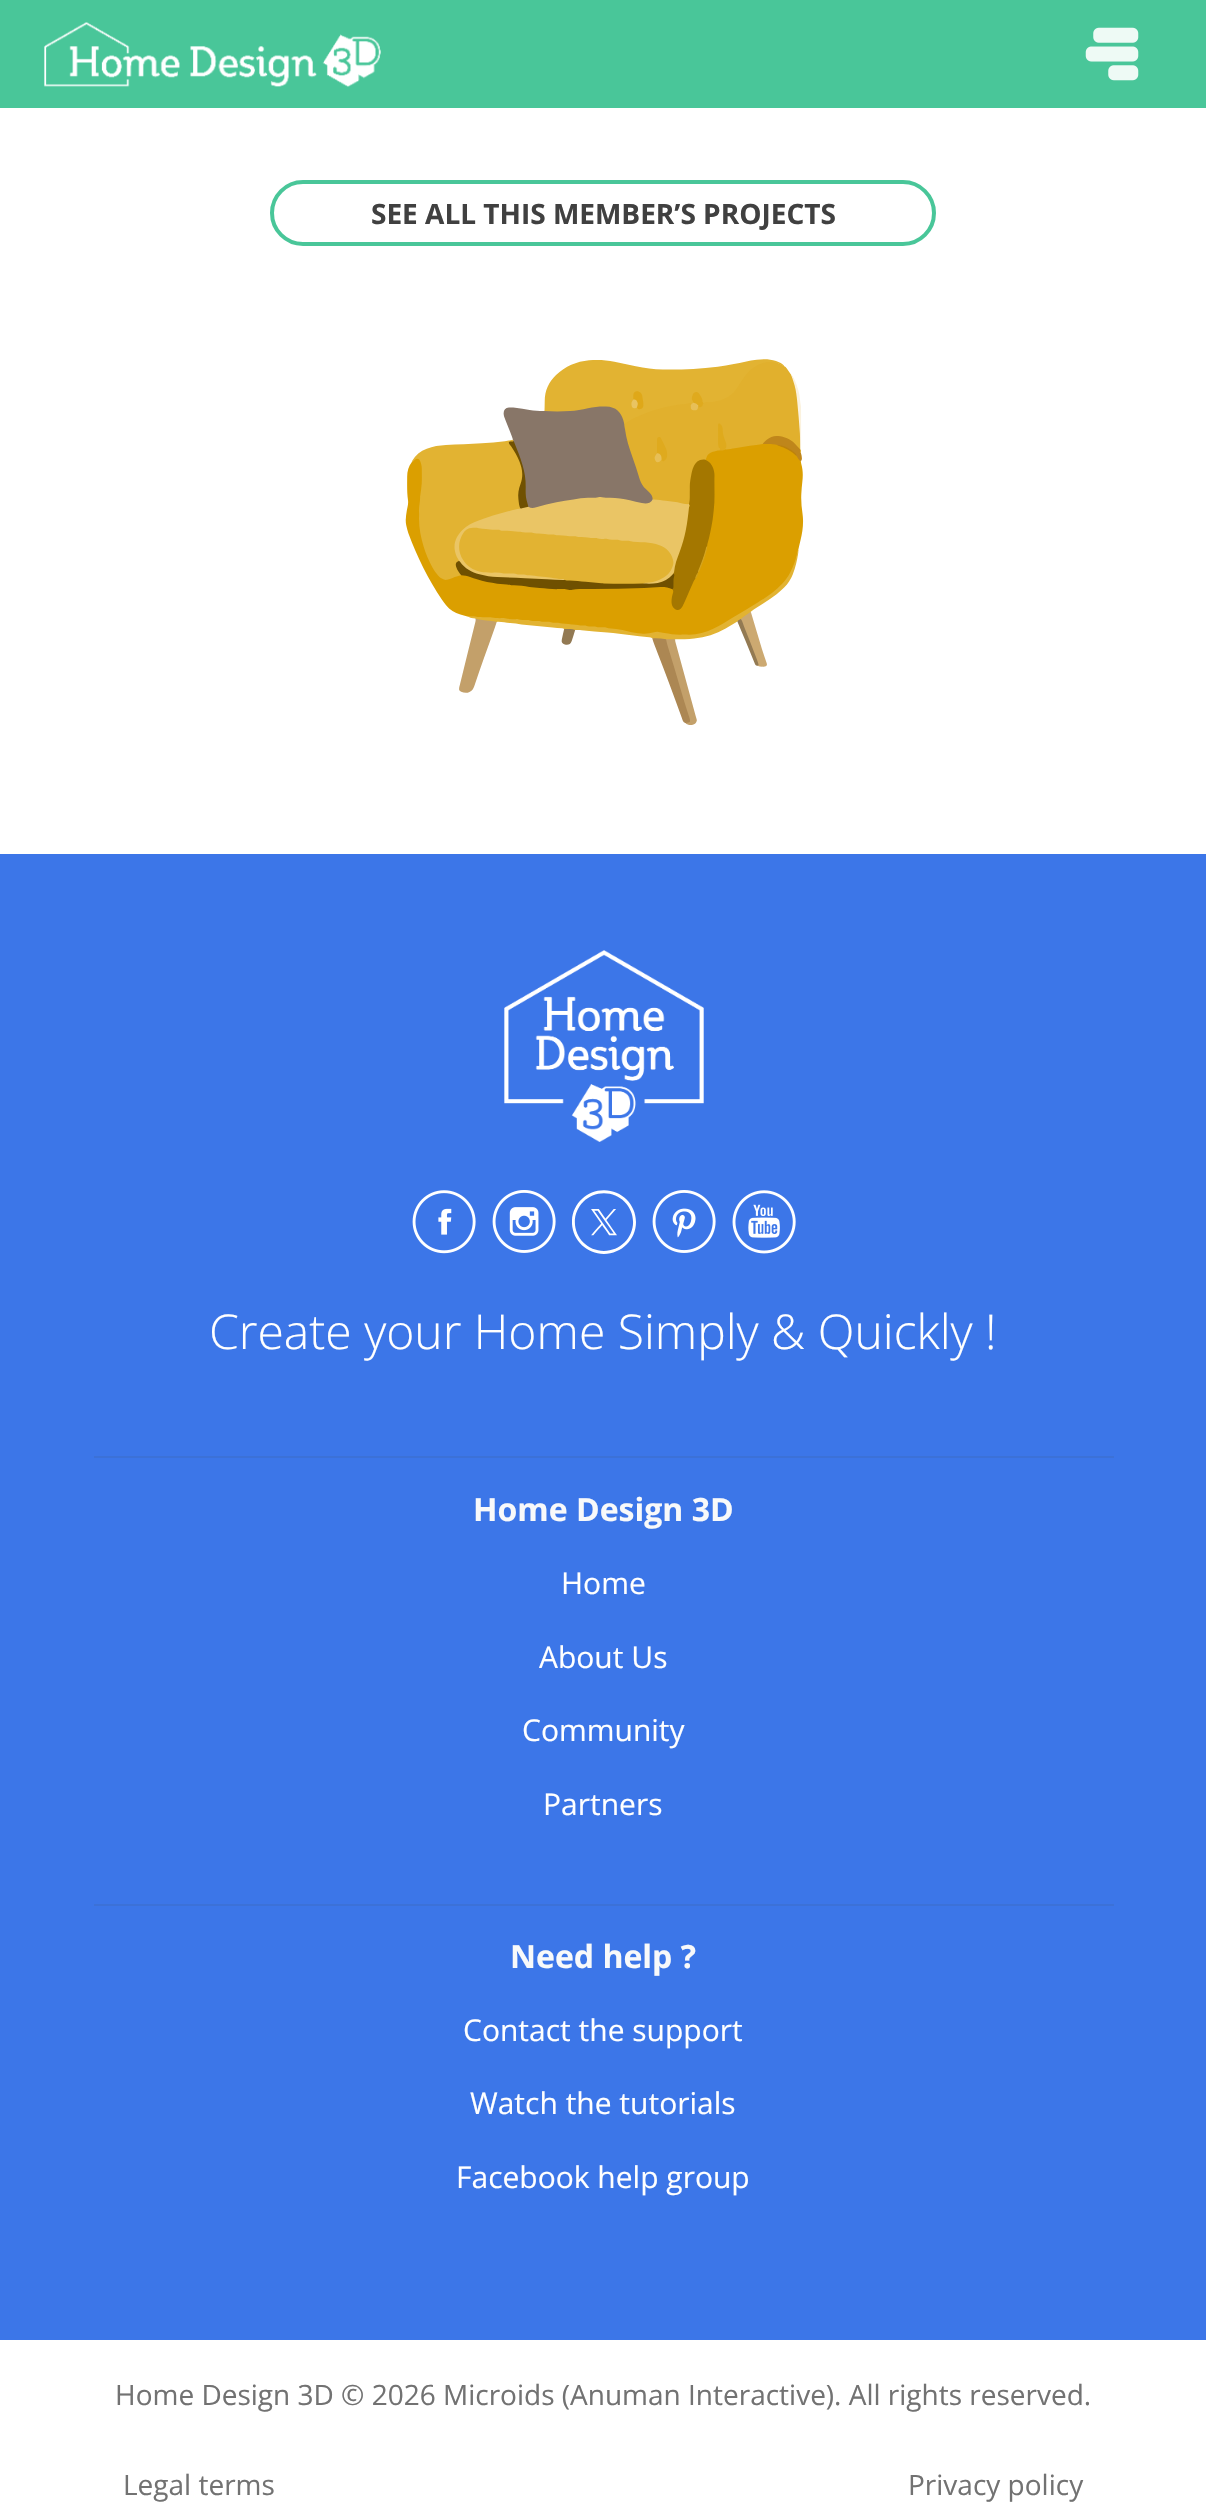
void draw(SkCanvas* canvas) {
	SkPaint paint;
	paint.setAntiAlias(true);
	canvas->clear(0xffffffff);
	paint.setColor(0xff49c699);
	canvas->drawRect(SkRect::MakeXYWH(0, 0, 1206, 108), paint);
	canvas->drawImageRect(SkImages::DeferredFromEncodedData(SkData::MakeFromFileName("img1.png")), SkRect::MakeXYWH(44, 22, 337, 65), SkSamplingOptions());
	canvas->drawImageRect(SkImages::DeferredFromEncodedData(SkData::MakeFromFileName("img2.png")), SkRect::MakeXYWH(1085, 27, 54, 54), SkSamplingOptions());
	paint.setStroke(true);
	paint.setStrokeWidth(4);
	canvas->drawRoundRect(SkRect::MakeXYWH(272, 182, 662, 62), 31, 31, paint);
	SkFont f1(fontMgr->matchFamilyStyle("Open Sans", SkFontStyle::Bold()), 28);
	f1.setSubpixel(true);
	paint.setStroke(false);
	paint.setColor(0xff404040);
	canvas->drawString("SEE ALL THIS MEMBER’S PROJECTS", 371, 224, f1, paint);
	canvas->drawImageRect(SkImages::DeferredFromEncodedData(SkData::MakeFromFileName("img3.png")), SkRect::MakeXYWH(405, 359, 399, 366), SkSamplingOptions());
	paint.setColor(0xff3c76e8);
	canvas->drawRect(SkRect::MakeXYWH(0, 854, 1206, 1486), paint);
	canvas->drawImageRect(SkImages::DeferredFromEncodedData(SkData::MakeFromFileName("img4.png")), SkRect::MakeXYWH(504, 950, 200, 192), SkSamplingOptions());
	canvas->drawImageRect(SkImages::DeferredFromEncodedData(SkData::MakeFromFileName("img5.png")), SkRect::MakeXYWH(412, 1190, 64, 64), SkSamplingOptions());
	canvas->drawImageRect(SkImages::DeferredFromEncodedData(SkData::MakeFromFileName("img6.png")), SkRect::MakeXYWH(492, 1190, 64, 63), SkSamplingOptions());
	canvas->drawImageRect(SkImages::DeferredFromEncodedData(SkData::MakeFromFileName("img7.png")), SkRect::MakeXYWH(572, 1190, 64, 64), SkSamplingOptions());
	canvas->drawImageRect(SkImages::DeferredFromEncodedData(SkData::MakeFromFileName("img8.png")), SkRect::MakeXYWH(652, 1190, 64, 63), SkSamplingOptions());
	canvas->drawImageRect(SkImages::DeferredFromEncodedData(SkData::MakeFromFileName("img9.png")), SkRect::MakeXYWH(732, 1190, 64, 64), SkSamplingOptions());
	SkFont f2(fontMgr->matchFamilyStyle("Open Sans", SkFontStyle(300, SkFontStyle::kNormal_Width, SkFontStyle::kUpright_Slant)), 48);
	f2.setSubpixel(true);
	paint.setColor(0xffffffff);
	canvas->drawString("Create your Home Simply & Quickly !", 209, 1349, f2, paint);
	paint.setColor(0xff3c71d7);
	canvas->drawRect(SkRect::MakeXYWH(94, 1456, 1020, 2), paint);
	SkFont f3(fontMgr->matchFamilyStyle("Open Sans", SkFontStyle::Bold()), 32);
	f3.setSubpixel(true);
	paint.setColor(0xfff8f9fa);
	canvas->drawString("Home Design 3D", 473, 1521, f3, paint);
	SkFont f4(fontMgr->matchFamilyStyle("Open Sans", SkFontStyle::Normal()), 30);
	f4.setSubpixel(true);
	paint.setColor(0xffffffff);
	canvas->drawString("Home", 561, 1594, f4, paint);
	canvas->drawString("About Us", 539, 1668, f4, paint);
	canvas->drawString("Community", 522, 1741, f4, paint);
	canvas->drawString("Partners", 543, 1815, f4, paint);
	paint.setColor(0xff3c71d7);
	canvas->drawRect(SkRect::MakeXYWH(94, 1904, 1020, 2), paint);
	paint.setColor(0xfff8f9fa);
	canvas->drawString("Need help ?", 510, 1968, f3, paint);
	paint.setColor(0xffffffff);
	canvas->drawString("Contact the support", 463, 2041, f4, paint);
	canvas->drawString("Watch the tutorials", 470, 2114, f4, paint);
	canvas->drawString("Facebook help group", 456, 2188, f4, paint);
	SkFont f5(fontMgr->matchFamilyStyle("Open Sans", SkFontStyle::Normal()), 28);
	f5.setSubpixel(true);
	paint.setColor(0xff727272);
	canvas->drawString("Home Design 3D © 2026 Microids (Anuman Interactive). All rights reserved.", 115, 2405, f5, paint);
	canvas->drawString("Legal terms", 123, 2495, f5, paint);
	canvas->drawString("Privacy policy", 908, 2495, f5, paint);
}
